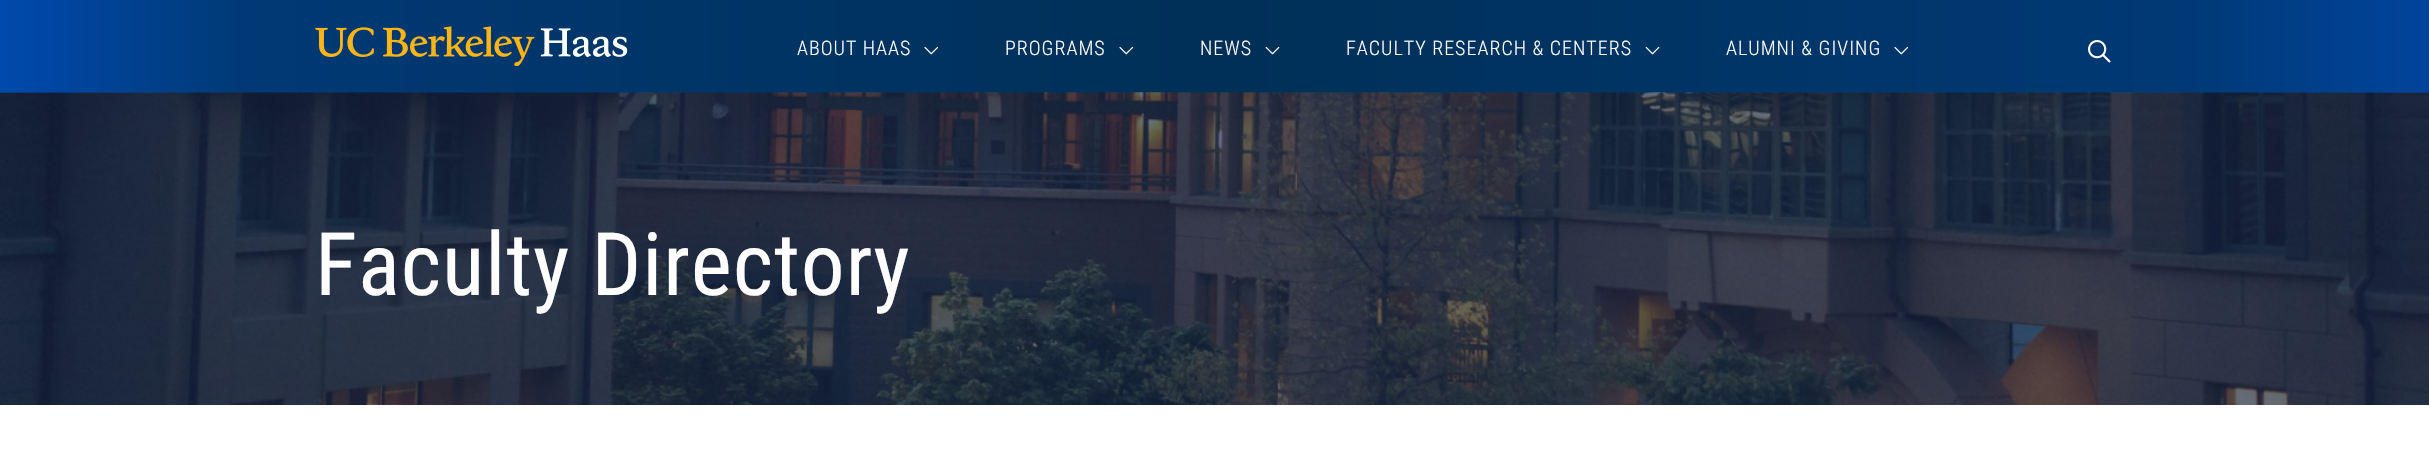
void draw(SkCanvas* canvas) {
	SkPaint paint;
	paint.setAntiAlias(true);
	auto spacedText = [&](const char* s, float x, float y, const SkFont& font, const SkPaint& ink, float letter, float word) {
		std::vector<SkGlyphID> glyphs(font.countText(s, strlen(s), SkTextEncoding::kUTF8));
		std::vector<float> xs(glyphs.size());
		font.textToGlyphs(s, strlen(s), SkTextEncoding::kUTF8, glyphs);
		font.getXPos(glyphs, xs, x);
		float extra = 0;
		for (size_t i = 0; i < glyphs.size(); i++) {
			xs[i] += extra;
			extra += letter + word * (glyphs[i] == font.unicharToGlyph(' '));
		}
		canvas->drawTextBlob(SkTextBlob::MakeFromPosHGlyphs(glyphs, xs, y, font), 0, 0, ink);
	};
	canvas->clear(0xffffffff);
	{
		const SkColor colors[] = {0xff004aae, 0xff003975, 0xff003057, 0xff003975, 0xff00449c};
		const float stops[] = {0, 0.1, 0.5, 0.9, 1};
		const SkPoint ends[] = {{0, 46}, {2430, 46}};
		paint.setShader(SkGradientShader::MakeLinear(ends, colors, stops, 5, SkTileMode::kClamp));
		paint.setAlpha(255);
	}
	canvas->drawRect(SkRect::MakeXYWH(0, 0, 2429, 93), paint);
	canvas->drawImageRect(SkImages::DeferredFromEncodedData(SkData::MakeFromFileName("img1.png")), SkRect::MakeXYWH(315, 26, 313, 40), SkSamplingOptions());
	SkFont f1(fontMgr->matchFamilyStyle("Roboto Condensed", SkFontStyle(300, SkFontStyle::kNormal_Width, SkFontStyle::kUpright_Slant)), 20);
	f1.setSubpixel(true);
	paint.setShader(nullptr);
	paint.setColor(0xffffffff);
	spacedText("ABOUT HAAS", 797, 55, f1, paint, 1, 0);
	canvas->drawImageRect(SkImages::DeferredFromEncodedData(SkData::MakeFromFileName("img2.png")), SkRect::MakeXYWH(924, 46, 15, 9), SkSamplingOptions());
	spacedText("PROGRAMS", 1005, 55, f1, paint, 1, 0);
	canvas->drawImageRect(SkImages::DeferredFromEncodedData(SkData::MakeFromFileName("img3.png")), SkRect::MakeXYWH(1119, 46, 15, 9), SkSamplingOptions());
	spacedText("NEWS", 1200, 55, f1, paint, 1, 0);
	canvas->drawImageRect(SkImages::DeferredFromEncodedData(SkData::MakeFromFileName("img4.png")), SkRect::MakeXYWH(1265, 46, 15, 9), SkSamplingOptions());
	spacedText("FACULTY RESEARCH & CENTERS", 1346, 55, f1, paint, 1, 0);
	canvas->drawImageRect(SkImages::DeferredFromEncodedData(SkData::MakeFromFileName("img5.png")), SkRect::MakeXYWH(1645, 46, 15, 9), SkSamplingOptions());
	spacedText("ALUMNI & GIVING", 1726, 55, f1, paint, 1, 0);
	canvas->drawImageRect(SkImages::DeferredFromEncodedData(SkData::MakeFromFileName("img6.png")), SkRect::MakeXYWH(1894, 46, 15, 9), SkSamplingOptions());
	canvas->drawImageRect(SkImages::DeferredFromEncodedData(SkData::MakeFromFileName("img7.png")), SkRect::MakeXYWH(2088, 40, 23, 23), SkSamplingOptions());
	canvas->drawImageRect(SkImages::DeferredFromEncodedData(SkData::MakeFromFileName("img8.png")), SkRect::MakeXYWH(0, 92, 2429, 313), SkSamplingOptions());
	SkFont f2(fontMgr->matchFamilyStyle("Roboto Condensed", SkFontStyle::Normal()), 87.5);
	f2.setSubpixel(true);
	spacedText("Faculty Directory", 315, 295, f2, paint, 0.9, 0);
}
